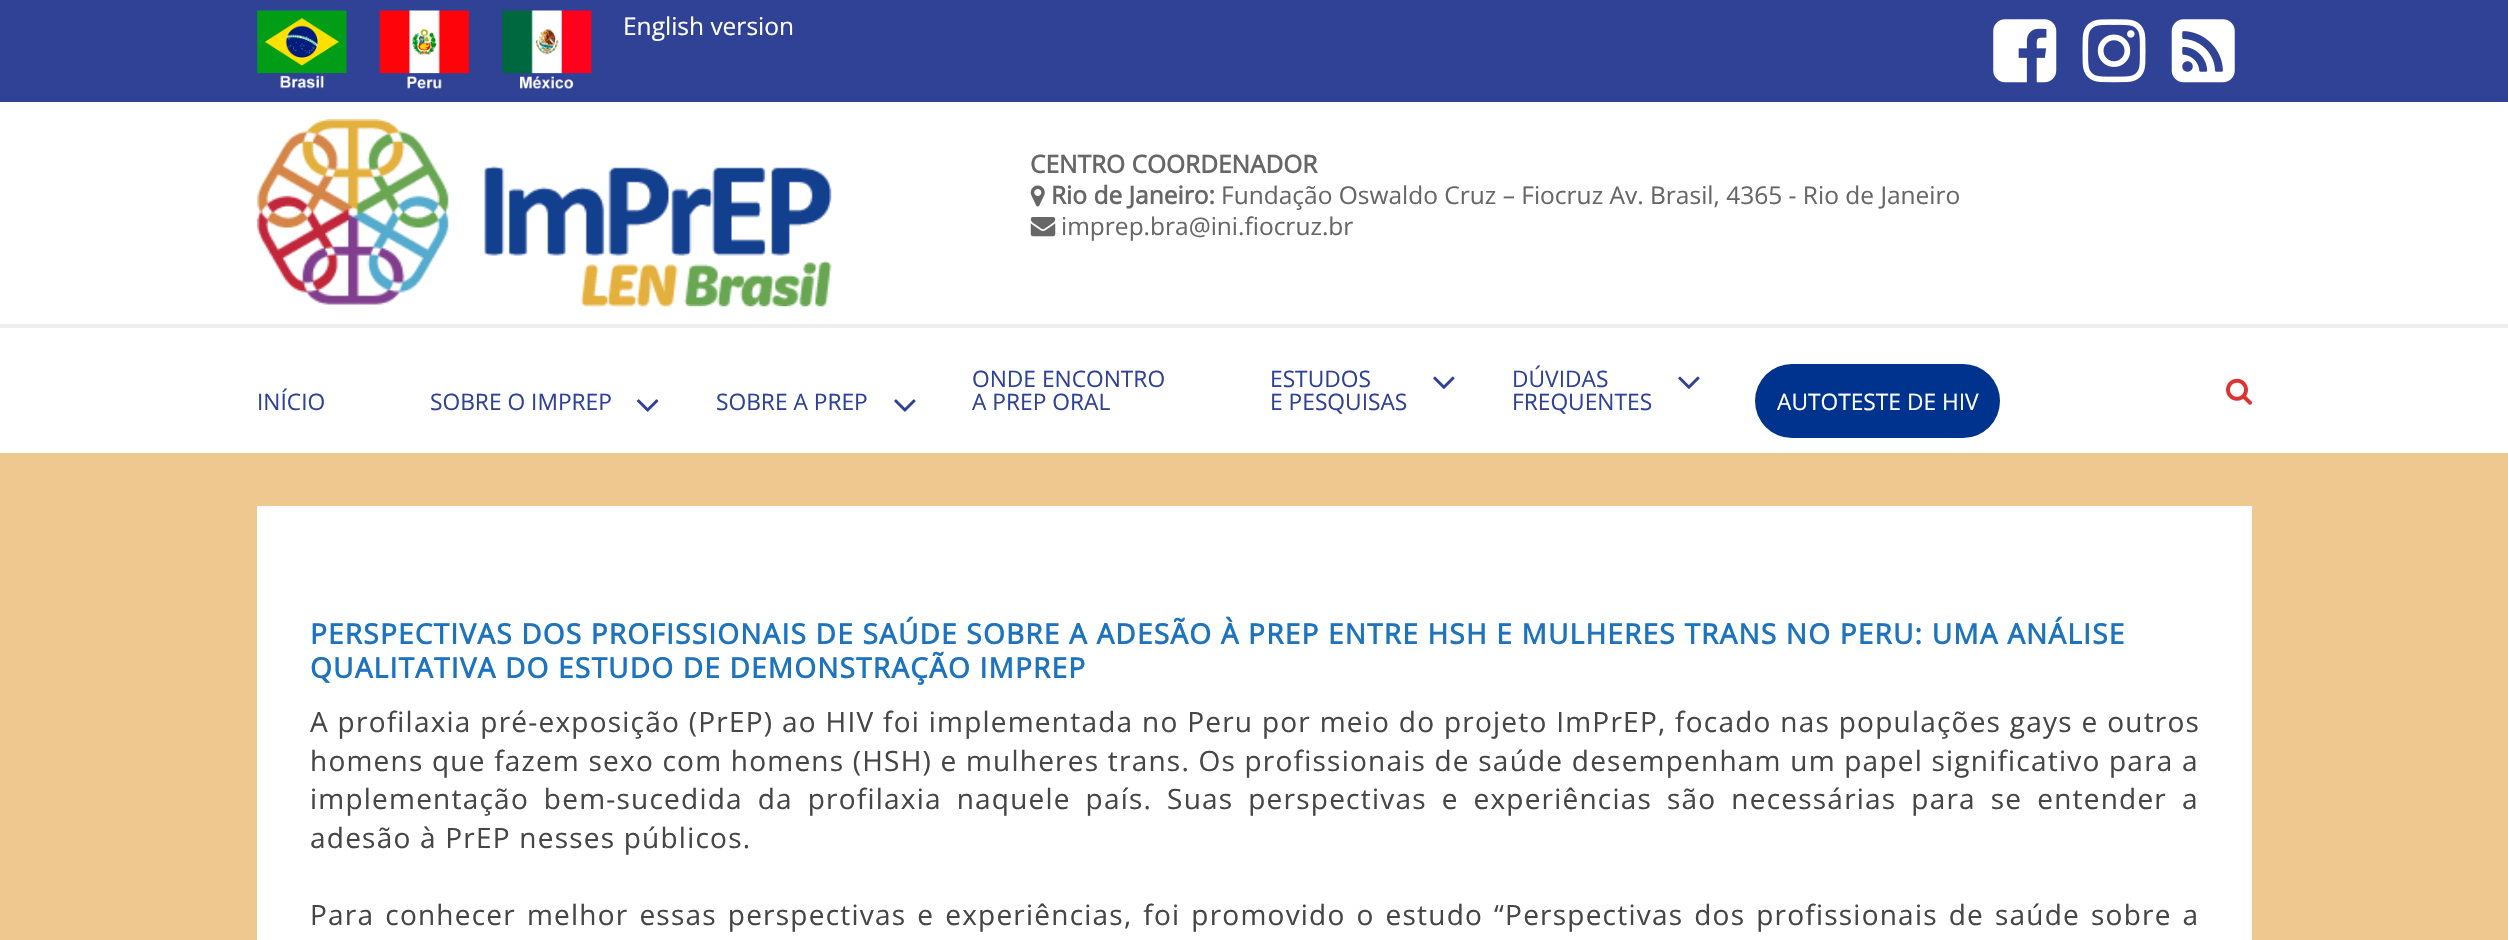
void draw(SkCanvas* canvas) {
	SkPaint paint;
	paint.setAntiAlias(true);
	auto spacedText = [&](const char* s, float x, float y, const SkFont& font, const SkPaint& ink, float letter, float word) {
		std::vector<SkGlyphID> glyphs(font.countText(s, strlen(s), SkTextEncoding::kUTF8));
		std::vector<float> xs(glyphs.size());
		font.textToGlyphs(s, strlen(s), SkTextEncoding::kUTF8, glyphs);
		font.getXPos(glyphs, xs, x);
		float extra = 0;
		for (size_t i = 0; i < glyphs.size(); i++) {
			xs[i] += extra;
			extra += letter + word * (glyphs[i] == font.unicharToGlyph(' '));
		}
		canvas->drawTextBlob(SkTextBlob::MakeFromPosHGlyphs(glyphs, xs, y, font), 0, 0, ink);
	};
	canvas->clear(0xffeec88f);
	paint.setColor(0xff304296);
	canvas->drawRect(SkRect::MakeXYWH(0, 0, 2508, 102), paint);
	canvas->drawImageRect(SkImages::DeferredFromEncodedData(SkData::MakeFromFileName("img1.png")), SkRect::MakeXYWH(257, 10, 90, 79), SkSamplingOptions());
	canvas->drawImageRect(SkImages::DeferredFromEncodedData(SkData::MakeFromFileName("img2.png")), SkRect::MakeXYWH(379, 10, 90, 79), SkSamplingOptions());
	canvas->drawImageRect(SkImages::DeferredFromEncodedData(SkData::MakeFromFileName("img3.png")), SkRect::MakeXYWH(502, 10, 90, 79), SkSamplingOptions());
	SkFont f1(fontMgr->matchFamilyStyle("Open Sans", SkFontStyle::Normal()), 24.5);
	f1.setSubpixel(true);
	paint.setColor(0xffffffff);
	canvas->drawString("English version", 623, 35, f1, paint);
	canvas->drawImageRect(SkImages::DeferredFromEncodedData(SkData::MakeFromFileName("img4.png")), SkRect::MakeXYWH(1993, 19, 64, 64), SkSamplingOptions());
	canvas->drawImageRect(SkImages::DeferredFromEncodedData(SkData::MakeFromFileName("img5.png")), SkRect::MakeXYWH(2082, 19, 64, 64), SkSamplingOptions());
	canvas->drawImageRect(SkImages::DeferredFromEncodedData(SkData::MakeFromFileName("img6.png")), SkRect::MakeXYWH(2171, 19, 64, 64), SkSamplingOptions());
	canvas->drawRect(SkRect::MakeXYWH(0, 102, 2508, 222), paint);
	canvas->drawImageRect(SkImages::DeferredFromEncodedData(SkData::MakeFromFileName("img7.png")), SkRect::MakeXYWH(257, 119, 575, 188), SkSamplingOptions());
	SkFont f2(fontMgr->matchFamilyStyle("Open Sans", SkFontStyle::Bold()), 24.5);
	f2.setSubpixel(true);
	paint.setColor(0xff676767);
	canvas->drawString("CENTRO COORDENADOR", 1030, 173, f2, paint);
	canvas->drawImageRect(SkImages::DeferredFromEncodedData(SkData::MakeFromFileName("img8.png")), SkRect::MakeXYWH(1030, 185, 15, 22), SkSamplingOptions());
	canvas->drawString("Rio de Janeiro:", 1051, 204, f2, paint);
	canvas->drawString("Fundação Oswaldo Cruz – Fiocruz Av. Brasil, 4365 - Rio de Janeiro", 1221, 204, f1, paint);
	canvas->drawImageRect(SkImages::DeferredFromEncodedData(SkData::MakeFromFileName("img9.png")), SkRect::MakeXYWH(1030, 217, 26, 20), SkSamplingOptions());
	canvas->drawString("imprep.bra@ini.fiocruz.br", 1061, 235, f1, paint);
	paint.setColor(0xffffffff);
	canvas->drawRect(SkRect::MakeXYWH(0, 328, 2508, 125), paint);
	paint.setColor(0xffeeeeee);
	canvas->drawRect(SkRect::MakeXYWH(0, 324, 2508, 4), paint);
	SkFont f3(fontMgr->matchFamilyStyle("Open Sans", SkFontStyle::Normal()), 22.75);
	f3.setSubpixel(true);
	paint.setColor(0xff304296);
	canvas->drawString("INÍCIO", 257, 410, f3, paint);
	canvas->drawString("SOBRE O IMPREP", 430, 410, f3, paint);
	canvas->drawImageRect(SkImages::DeferredFromEncodedData(SkData::MakeFromFileName("img10.png")), SkRect::MakeXYWH(637, 399, 22, 13), SkSamplingOptions());
	canvas->drawString("SOBRE A PREP", 716, 410, f3, paint);
	canvas->drawImageRect(SkImages::DeferredFromEncodedData(SkData::MakeFromFileName("img11.png")), SkRect::MakeXYWH(894, 399, 22, 13), SkSamplingOptions());
	canvas->drawString("ONDE ENCONTRO", 972, 387, f3, paint);
	canvas->drawString("A PREP ORAL", 972, 410, f3, paint);
	canvas->drawString("ESTUDOS", 1270, 387, f3, paint);
	canvas->drawString("E PESQUISAS", 1270, 410, f3, paint);
	canvas->drawImageRect(SkImages::DeferredFromEncodedData(SkData::MakeFromFileName("img12.png")), SkRect::MakeXYWH(1433, 376, 22, 13), SkSamplingOptions());
	canvas->drawString("DÚVIDAS", 1512, 387, f3, paint);
	canvas->drawString("FREQUENTES", 1512, 410, f3, paint);
	canvas->drawImageRect(SkImages::DeferredFromEncodedData(SkData::MakeFromFileName("img12.png")), SkRect::MakeXYWH(1678, 376, 22, 13), SkSamplingOptions());
	paint.setColor(0xff00338e);
	canvas->drawRoundRect(SkRect::MakeXYWH(1755, 364, 245, 74), 37, 37, paint);
	paint.setColor(0xffffffff);
	canvas->drawString("AUTOTESTE DE HIV", 1777, 410, f3, paint);
	canvas->drawImageRect(SkImages::DeferredFromEncodedData(SkData::MakeFromFileName("img13.png")), SkRect::MakeXYWH(2226, 378, 26, 27), SkSamplingOptions());
	canvas->drawRect(SkRect::MakeXYWH(257, 506, 1995, 434), paint);
	SkFont f4(fontMgr->matchFamilyStyle("Open Sans", SkFontStyle::Bold()), 28);
	f4.setSubpixel(true);
	paint.setColor(0xff1e73be);
	spacedText("PERSPECTIVAS DOS PROFISSIONAIS DE SAÚDE SOBRE A ADESÃO À PREP ENTRE HSH E MULHERES TRANS NO PERU: UMA ANÁLISE", 310, 644, f4, paint, 1.22, 0);
	spacedText("QUALITATIVA DO ESTUDO DE DEMONSTRAÇÃO IMPREP", 310, 678, f4, paint, 1.22, 0);
	SkFont f5(fontMgr->matchFamilyStyle("Open Sans", SkFontStyle::Normal()), 28);
	f5.setSubpixel(true);
	paint.setColor(0xff464646);
	spacedText("A profilaxia pré-exposição (PrEP) ao HIV foi implementada no Peru por meio do projeto ImPrEP, focado nas populações gays e outros", 310, 732, f5, paint, 1.22, 0.2);
	spacedText("homens que fazem sexo com homens (HSH) e mulheres trans. Os profissionais de saúde desempenham um papel significativo para a", 310, 771, f5, paint, 1.22, 0);
	spacedText("implementação bem-sucedida da profilaxia naquele país. Suas perspectivas e experiências são necessárias para se entender a", 310, 809, f5, paint, 1.22, 6.4);
	spacedText("adesão à PrEP nesses públicos.", 310, 848, f5, paint, 1.22, 0);
	spacedText("Para conhecer melhor essas perspectivas e experiências, foi promovido o estudo “Perspectivas dos profissionais de saúde sobre a", 310, 925, f5, paint, 1.22, 2.5);
}
